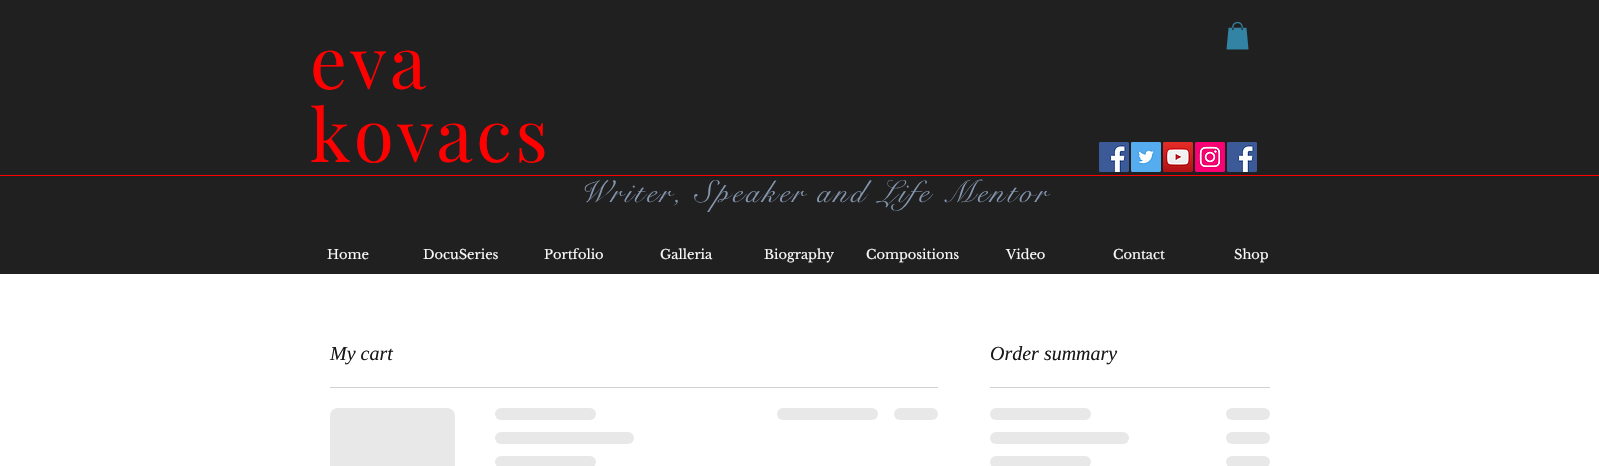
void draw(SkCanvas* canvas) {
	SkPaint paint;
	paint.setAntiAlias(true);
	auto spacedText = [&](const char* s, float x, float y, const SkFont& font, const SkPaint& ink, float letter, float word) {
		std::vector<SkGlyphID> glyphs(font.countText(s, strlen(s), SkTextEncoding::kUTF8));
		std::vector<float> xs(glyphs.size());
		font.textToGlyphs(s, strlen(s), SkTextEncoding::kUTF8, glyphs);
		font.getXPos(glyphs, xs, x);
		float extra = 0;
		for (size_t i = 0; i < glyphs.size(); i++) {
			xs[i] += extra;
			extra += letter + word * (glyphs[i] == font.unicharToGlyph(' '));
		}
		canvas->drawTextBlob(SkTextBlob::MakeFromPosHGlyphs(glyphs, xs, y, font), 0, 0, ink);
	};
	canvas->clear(0xffffffff);
	paint.setColor(0xff202020);
	canvas->drawRect(SkRect::MakeXYWH(0, 0, 1599, 274), paint);
	canvas->drawImageRect(SkImages::DeferredFromEncodedData(SkData::MakeFromFileName("img1.png")), SkRect::MakeXYWH(1226, 22, 23, 28), SkSamplingOptions());
	SkFont f1(fontMgr->matchFamilyStyle("Playfair Display", SkFontStyle::Normal()), 73);
	f1.setSubpixel(true);
	paint.setColor(0xffff0000);
	spacedText("eva", 310, 89, f1, paint, 3.5, 0);
	spacedText("kovacs", 310, 162, f1, paint, 3.5, 0);
	canvas->drawImageRect(SkImages::DeferredFromEncodedData(SkData::MakeFromFileName("img2.png")), SkRect::MakeXYWH(1099, 142, 30, 30), SkSamplingOptions());
	canvas->drawImageRect(SkImages::DeferredFromEncodedData(SkData::MakeFromFileName("img3.png")), SkRect::MakeXYWH(1131, 142, 30, 30), SkSamplingOptions());
	canvas->drawImageRect(SkImages::DeferredFromEncodedData(SkData::MakeFromFileName("img4.png")), SkRect::MakeXYWH(1163, 142, 30, 30), SkSamplingOptions());
	canvas->drawImageRect(SkImages::DeferredFromEncodedData(SkData::MakeFromFileName("img5.png")), SkRect::MakeXYWH(1195, 142, 30, 30), SkSamplingOptions());
	canvas->drawImageRect(SkImages::DeferredFromEncodedData(SkData::MakeFromFileName("img2.png")), SkRect::MakeXYWH(1227, 142, 30, 30), SkSamplingOptions());
	canvas->drawRect(SkRect::MakeXYWH(0, 175, 1599, 1), paint);
	SkFont f2(fontMgr->matchFamilyStyle("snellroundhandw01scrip", SkFontStyle::Normal()), 31);
	f2.setSubpixel(true);
	paint.setColor(0xff8496af);
	spacedText("Writer, Speaker and Life Mentor", 579, 202, f2, paint, 3.1, 0);
	SkFont f3(fontMgr->matchFamilyStyle("Libre Baskerville", SkFontStyle::Normal()), 13);
	f3.setSubpixel(true);
	paint.setColor(0xfffafafb);
	canvas->drawString("Home", 327, 259, f3, paint);
	canvas->drawString("DocuSeries", 423, 259, f3, paint);
	canvas->drawString("Portfolio", 544, 259, f3, paint);
	canvas->drawString("Galleria", 660, 259, f3, paint);
	canvas->drawString("Biography", 764, 259, f3, paint);
	canvas->drawString("Compositions", 866, 259, f3, paint);
	canvas->drawString("Video", 1006, 259, f3, paint);
	canvas->drawString("Contact", 1113, 259, f3, paint);
	canvas->drawString("Shop", 1234, 259, f3, paint);
	paint.setColor(0xffd1d1d1);
	canvas->drawRect(SkRect::MakeXYWH(330, 387, 608, 1), paint);
	SkFont f4(fontMgr->matchFamilyStyle("Liberation Serif", SkFontStyle::Italic()), 20);
	f4.setSubpixel(true);
	paint.setColor(0xff181818);
	canvas->drawString("My cart", 330, 360, f4, paint);
	{
		const SkColor colors[] = {0xffe8e8e8, 0xffd1d1d1, 0xffe8e8e8};
		const float stops[] = {0.25, 0.37, 0.63};
		const SkPoint ends[] = {{330, 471}, {830, 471}};
		paint.setShader(SkGradientShader::MakeLinear(ends, colors, stops, 3, SkTileMode::kClamp));
		paint.setAlpha(255);
	}
	canvas->drawRoundRect(SkRect::MakeXYWH(330, 408, 125, 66), 8, 8, paint);
	{
		const SkColor colors[] = {0xffe8e8e8, 0xffd1d1d1, 0xffe8e8e8};
		const float stops[] = {0.25, 0.37, 0.63};
		const SkPoint ends[] = {{495, 414}, {899, 414}};
		paint.setShader(SkGradientShader::MakeLinear(ends, colors, stops, 3, SkTileMode::kClamp));
		paint.setAlpha(255);
	}
	canvas->drawRoundRect(SkRect::MakeXYWH(495, 408, 101, 12), 6, 6, paint);
	{
		const SkColor colors[] = {0xffe8e8e8, 0xffd1d1d1, 0xffe8e8e8};
		const float stops[] = {0.25, 0.37, 0.63};
		const SkPoint ends[] = {{495, 438}, {1051, 438}};
		paint.setShader(SkGradientShader::MakeLinear(ends, colors, stops, 3, SkTileMode::kClamp));
		paint.setAlpha(255);
	}
	canvas->drawRoundRect(SkRect::MakeXYWH(495, 432, 139, 12), 6, 6, paint);
	{
		const SkColor colors[] = {0xffe8e8e8, 0xffd1d1d1, 0xffe8e8e8};
		const float stops[] = {0.25, 0.37, 0.63};
		const SkPoint ends[] = {{495, 462}, {899, 462}};
		paint.setShader(SkGradientShader::MakeLinear(ends, colors, stops, 3, SkTileMode::kClamp));
		paint.setAlpha(255);
	}
	canvas->drawRoundRect(SkRect::MakeXYWH(495, 456, 101, 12), 6, 6, paint);
	{
		const SkColor colors[] = {0xffe8e8e8, 0xffd1d1d1, 0xffe8e8e8};
		const float stops[] = {0.25, 0.37, 0.63};
		const SkPoint ends[] = {{777, 414}, {1181, 414}};
		paint.setShader(SkGradientShader::MakeLinear(ends, colors, stops, 3, SkTileMode::kClamp));
		paint.setAlpha(255);
	}
	canvas->drawRoundRect(SkRect::MakeXYWH(777, 408, 101, 12), 6, 6, paint);
	{
		const SkColor colors[] = {0xffe8e8e8, 0xffd1d1d1, 0xffe8e8e8};
		const float stops[] = {0.25, 0.37, 0.63};
		const SkPoint ends[] = {{894, 414}, {1070, 414}};
		paint.setShader(SkGradientShader::MakeLinear(ends, colors, stops, 3, SkTileMode::kClamp));
		paint.setAlpha(255);
	}
	canvas->drawRoundRect(SkRect::MakeXYWH(894, 408, 44, 12), 6, 6, paint);
	paint.setShader(nullptr);
	paint.setColor(0xffd1d1d1);
	canvas->drawRect(SkRect::MakeXYWH(990, 387, 280, 1), paint);
	paint.setColor(0xff181818);
	canvas->drawString("Order summary", 990, 360, f4, paint);
	{
		const SkColor colors[] = {0xffe8e8e8, 0xffd1d1d1, 0xffe8e8e8};
		const float stops[] = {0.25, 0.37, 0.63};
		const SkPoint ends[] = {{990, 414}, {1394, 414}};
		paint.setShader(SkGradientShader::MakeLinear(ends, colors, stops, 3, SkTileMode::kClamp));
		paint.setAlpha(255);
	}
	canvas->drawRoundRect(SkRect::MakeXYWH(990, 408, 101, 12), 6, 6, paint);
	{
		const SkColor colors[] = {0xffe8e8e8, 0xffd1d1d1, 0xffe8e8e8};
		const float stops[] = {0.25, 0.37, 0.63};
		const SkPoint ends[] = {{1226, 414}, {1402, 414}};
		paint.setShader(SkGradientShader::MakeLinear(ends, colors, stops, 3, SkTileMode::kClamp));
		paint.setAlpha(255);
	}
	canvas->drawRoundRect(SkRect::MakeXYWH(1226, 408, 44, 12), 6, 6, paint);
	{
		const SkColor colors[] = {0xffe8e8e8, 0xffd1d1d1, 0xffe8e8e8};
		const float stops[] = {0.25, 0.37, 0.63};
		const SkPoint ends[] = {{990, 438}, {1546, 438}};
		paint.setShader(SkGradientShader::MakeLinear(ends, colors, stops, 3, SkTileMode::kClamp));
		paint.setAlpha(255);
	}
	canvas->drawRoundRect(SkRect::MakeXYWH(990, 432, 139, 12), 6, 6, paint);
	{
		const SkColor colors[] = {0xffe8e8e8, 0xffd1d1d1, 0xffe8e8e8};
		const float stops[] = {0.25, 0.37, 0.63};
		const SkPoint ends[] = {{1226, 438}, {1402, 438}};
		paint.setShader(SkGradientShader::MakeLinear(ends, colors, stops, 3, SkTileMode::kClamp));
		paint.setAlpha(255);
	}
	canvas->drawRoundRect(SkRect::MakeXYWH(1226, 432, 44, 12), 6, 6, paint);
	{
		const SkColor colors[] = {0xffe8e8e8, 0xffd1d1d1, 0xffe8e8e8};
		const float stops[] = {0.25, 0.37, 0.63};
		const SkPoint ends[] = {{990, 462}, {1394, 462}};
		paint.setShader(SkGradientShader::MakeLinear(ends, colors, stops, 3, SkTileMode::kClamp));
		paint.setAlpha(255);
	}
	canvas->drawRoundRect(SkRect::MakeXYWH(990, 456, 101, 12), 6, 6, paint);
	{
		const SkColor colors[] = {0xffe8e8e8, 0xffd1d1d1, 0xffe8e8e8};
		const float stops[] = {0.25, 0.37, 0.63};
		const SkPoint ends[] = {{1226, 462}, {1402, 462}};
		paint.setShader(SkGradientShader::MakeLinear(ends, colors, stops, 3, SkTileMode::kClamp));
		paint.setAlpha(255);
	}
	canvas->drawRoundRect(SkRect::MakeXYWH(1226, 456, 44, 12), 6, 6, paint);
}
